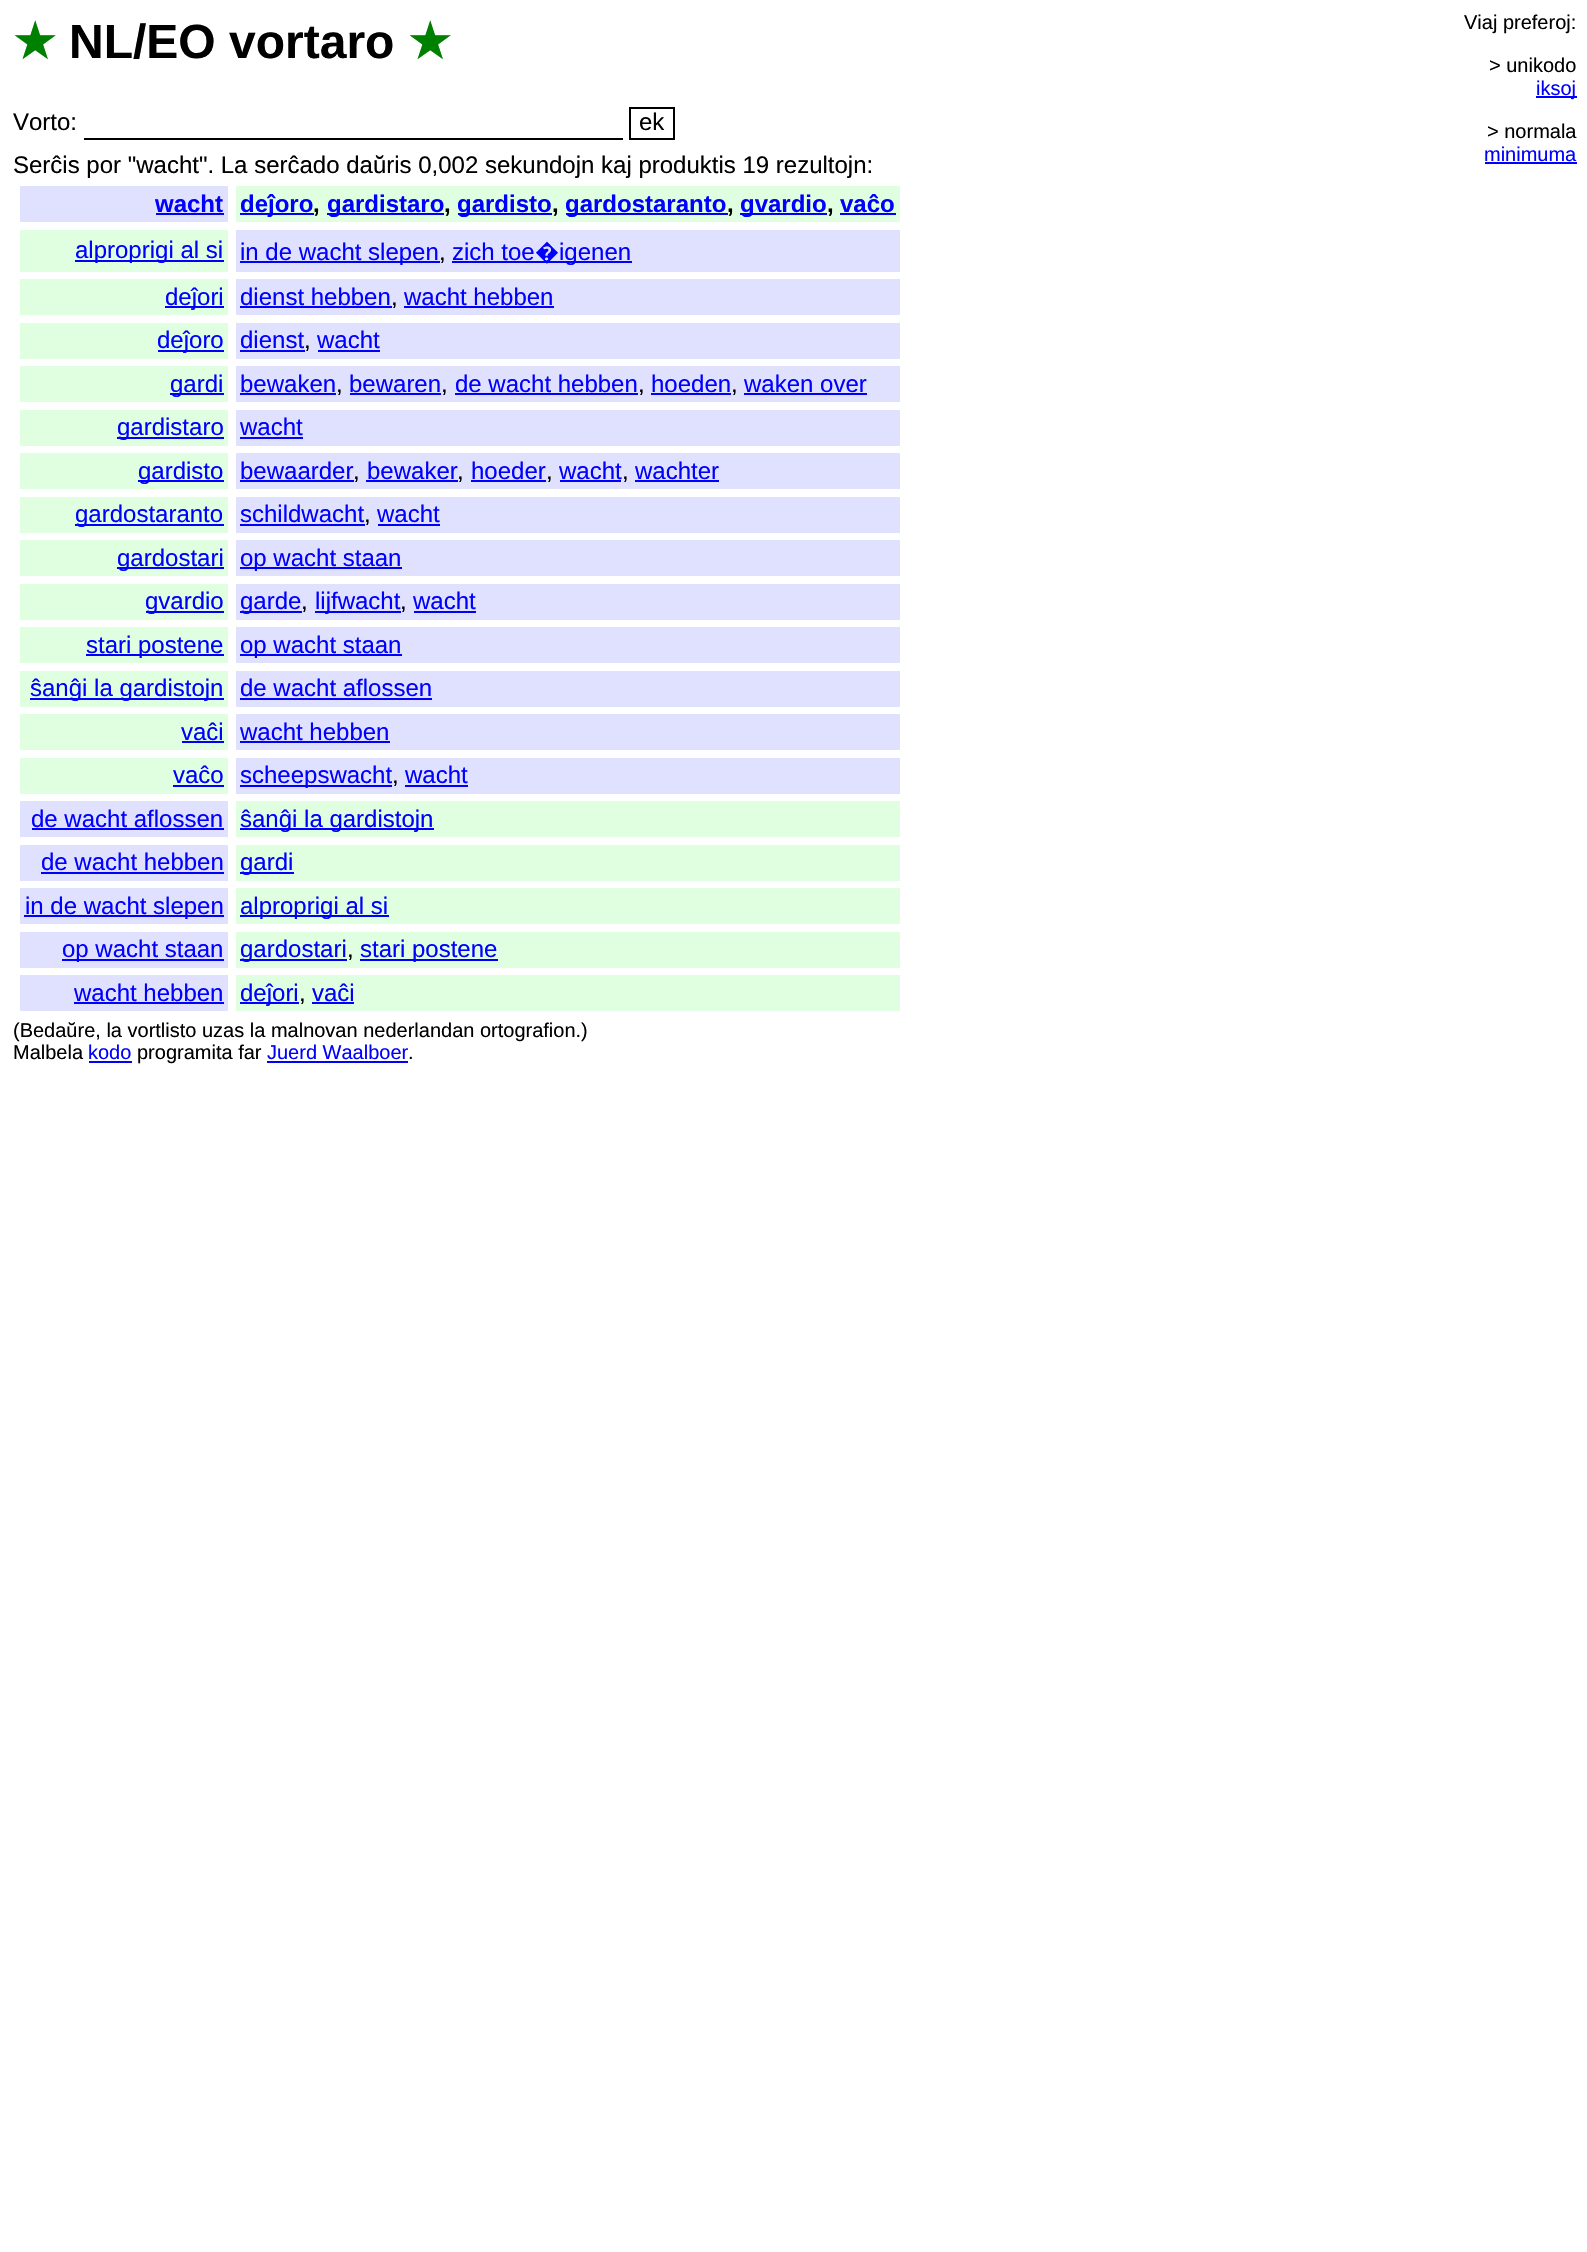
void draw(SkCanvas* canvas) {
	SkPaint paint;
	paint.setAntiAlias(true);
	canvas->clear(0xffffffff);
	SkFont f1(fontMgr->matchFamilyStyle("DejaVu Sans", SkFontStyle::Bold()), 48);
	f1.setSubpixel(true);
	paint.setColor(0xff008000);
	canvas->drawString("★", 13, 58, f1, paint);
	SkFont f2(fontMgr->matchFamilyStyle("Liberation Sans", SkFontStyle::Bold()), 48);
	f2.setSubpixel(true);
	paint.setColor(0xff000000);
	canvas->drawString("NL/EO vortaro", 69, 58, f2, paint);
	paint.setColor(0xff008000);
	canvas->drawString("★", 408, 58, f1, paint);
	SkFont f3(fontMgr->matchFamilyStyle("Liberation Sans", SkFontStyle::Normal()), 20);
	f3.setSubpixel(true);
	paint.setColor(0xff000000);
	canvas->drawString("Viaj preferoj:", 1464, 29, f3, paint);
	canvas->drawString("> unikodo", 1489, 72, f3, paint);
	paint.setColor(0xff0000ff);
	canvas->drawRect(SkRect::MakeXYWH(1536, 96, 41, 2), paint);
	canvas->drawString("iksoj", 1536, 95, f3, paint);
	paint.setColor(0xff000000);
	canvas->drawString("> normala", 1487, 138, f3, paint);
	paint.setColor(0xff0000ff);
	canvas->drawString("minimuma", 1484, 161, f3, paint);
	canvas->drawRect(SkRect::MakeXYWH(1485, 162, 92, 2), paint);
	SkFont f4(fontMgr->matchFamilyStyle("Liberation Sans", SkFontStyle::Normal()), 24);
	f4.setSubpixel(true);
	paint.setColor(0xff000000);
	canvas->drawString("Vorto:", 13, 130, f4, paint);
	paint.setStroke(true);
	paint.setStrokeWidth(2);
	canvas->drawRect(SkRect::MakeXYWH(630, 108, 44, 31), paint);
	paint.setStroke(false);
	canvas->drawString("ek", 639, 130, f4, paint);
	canvas->drawRect(SkRect::MakeXYWH(84, 138, 539, 2), paint);
	canvas->drawString("Serĉis por \"wacht\". La serĉado daŭris 0,002 sekundojn kaj produktis 19 rezultojn:", 13, 173, f4, paint);
	paint.setColor(0xffe0e0ff);
	canvas->drawRect(SkRect::MakeXYWH(20, 186, 208, 36), paint);
	SkFont f5(fontMgr->matchFamilyStyle("Liberation Sans", SkFontStyle::Bold()), 24);
	f5.setSubpixel(true);
	paint.setColor(0xff0000ff);
	canvas->drawString("wacht", 155, 212, f5, paint);
	canvas->drawRect(SkRect::MakeXYWH(156, 213, 68, 2), paint);
	paint.setColor(0xffe0ffe0);
	canvas->drawRect(SkRect::MakeXYWH(236, 186, 664, 36), paint);
	paint.setColor(0xff0000ff);
	canvas->drawRect(SkRect::MakeXYWH(240, 213, 74, 2), paint);
	canvas->drawString("deĵoro", 240, 212, f5, paint);
	paint.setColor(0xff000000);
	canvas->drawString(",", 313, 212, f5, paint);
	paint.setColor(0xff0000ff);
	canvas->drawRect(SkRect::MakeXYWH(327, 213, 117, 2), paint);
	canvas->drawString("gardistaro", 327, 212, f5, paint);
	paint.setColor(0xff000000);
	canvas->drawString(",", 444, 212, f5, paint);
	paint.setColor(0xff0000ff);
	canvas->drawRect(SkRect::MakeXYWH(458, 213, 94, 2), paint);
	canvas->drawString("gardisto", 457, 212, f5, paint);
	paint.setColor(0xff000000);
	canvas->drawString(",", 552, 212, f5, paint);
	paint.setColor(0xff0000ff);
	canvas->drawRect(SkRect::MakeXYWH(566, 213, 162, 2), paint);
	canvas->drawString("gardostaranto", 565, 212, f5, paint);
	paint.setColor(0xff000000);
	canvas->drawString(",", 727, 212, f5, paint);
	paint.setColor(0xff0000ff);
	canvas->drawRect(SkRect::MakeXYWH(740, 213, 87, 2), paint);
	canvas->drawString("gvardio", 740, 212, f5, paint);
	paint.setColor(0xff000000);
	canvas->drawString(",", 827, 212, f5, paint);
	paint.setColor(0xff0000ff);
	canvas->drawString("vaĉo", 840, 212, f5, paint);
	canvas->drawRect(SkRect::MakeXYWH(840, 213, 56, 2), paint);
	paint.setColor(0xffe0ffe0);
	canvas->drawRect(SkRect::MakeXYWH(20, 230, 208, 42), paint);
	paint.setColor(0xff0000ff);
	canvas->drawRect(SkRect::MakeXYWH(75, 260, 149, 2), paint);
	canvas->drawString("alproprigi al si", 75, 258, f4, paint);
	paint.setColor(0xffe0e0ff);
	canvas->drawRect(SkRect::MakeXYWH(236, 230, 664, 42), paint);
	paint.setColor(0xff0000ff);
	canvas->drawRect(SkRect::MakeXYWH(240, 261, 200, 2), paint);
	canvas->drawString("in de wacht slepen", 240, 260, f4, paint);
	paint.setColor(0xff000000);
	canvas->drawString(",", 439, 260, f4, paint);
	paint.setColor(0xff0000ff);
	canvas->drawString("zich toe", 452, 260, f4, paint);
	canvas->drawRect(SkRect::MakeXYWH(452, 261, 180, 2), paint);
	SkFont f6(fontMgr->matchFamilyStyle("Noto Sans", SkFontStyle::Normal()), 24);
	f6.setSubpixel(true);
	canvas->drawString("�", 535, 260, f6, paint);
	canvas->drawString("igenen", 559, 260, f4, paint);
	paint.setColor(0xffe0ffe0);
	canvas->drawRect(SkRect::MakeXYWH(20, 279, 208, 36), paint);
	paint.setColor(0xff0000ff);
	canvas->drawRect(SkRect::MakeXYWH(165, 306, 59, 2), paint);
	canvas->drawString("deĵori", 165, 305, f4, paint);
	paint.setColor(0xffe0e0ff);
	canvas->drawRect(SkRect::MakeXYWH(236, 279, 664, 36), paint);
	paint.setColor(0xff0000ff);
	canvas->drawString("dienst hebben", 240, 305, f4, paint);
	canvas->drawRect(SkRect::MakeXYWH(240, 306, 152, 2), paint);
	paint.setColor(0xff000000);
	canvas->drawString(",", 391, 305, f4, paint);
	paint.setColor(0xff0000ff);
	canvas->drawString("wacht hebben", 404, 305, f4, paint);
	canvas->drawRect(SkRect::MakeXYWH(404, 306, 150, 2), paint);
	paint.setColor(0xffe0ffe0);
	canvas->drawRect(SkRect::MakeXYWH(20, 323, 208, 36), paint);
	paint.setColor(0xff0000ff);
	canvas->drawRect(SkRect::MakeXYWH(158, 350, 66, 2), paint);
	canvas->drawString("deĵoro", 157, 348, f4, paint);
	paint.setColor(0xffe0e0ff);
	canvas->drawRect(SkRect::MakeXYWH(236, 323, 664, 36), paint);
	paint.setColor(0xff0000ff);
	canvas->drawString("dienst", 240, 348, f4, paint);
	canvas->drawRect(SkRect::MakeXYWH(240, 350, 65, 2), paint);
	paint.setColor(0xff000000);
	canvas->drawString(",", 304, 348, f4, paint);
	paint.setColor(0xff0000ff);
	canvas->drawString("wacht", 317, 348, f4, paint);
	canvas->drawRect(SkRect::MakeXYWH(318, 350, 62, 2), paint);
	paint.setColor(0xffe0ffe0);
	canvas->drawRect(SkRect::MakeXYWH(20, 366, 208, 36), paint);
	paint.setColor(0xff0000ff);
	canvas->drawRect(SkRect::MakeXYWH(170, 393, 54, 2), paint);
	canvas->drawString("gardi", 170, 392, f4, paint);
	paint.setColor(0xffe0e0ff);
	canvas->drawRect(SkRect::MakeXYWH(236, 366, 664, 36), paint);
	paint.setColor(0xff0000ff);
	canvas->drawString("bewaken", 240, 392, f4, paint);
	canvas->drawRect(SkRect::MakeXYWH(240, 393, 96, 2), paint);
	paint.setColor(0xff000000);
	canvas->drawString(",", 336, 392, f4, paint);
	paint.setColor(0xff0000ff);
	canvas->drawString("bewaren", 349, 392, f4, paint);
	canvas->drawRect(SkRect::MakeXYWH(350, 393, 91, 2), paint);
	paint.setColor(0xff000000);
	canvas->drawString(",", 441, 392, f4, paint);
	paint.setColor(0xff0000ff);
	canvas->drawString("de wacht hebben", 455, 392, f4, paint);
	canvas->drawRect(SkRect::MakeXYWH(455, 393, 183, 2), paint);
	paint.setColor(0xff000000);
	canvas->drawString(",", 638, 392, f4, paint);
	paint.setColor(0xff0000ff);
	canvas->drawString("hoeden", 651, 392, f4, paint);
	canvas->drawRect(SkRect::MakeXYWH(651, 393, 80, 2), paint);
	paint.setColor(0xff000000);
	canvas->drawString(",", 731, 392, f4, paint);
	paint.setColor(0xff0000ff);
	canvas->drawString("waken over", 744, 392, f4, paint);
	canvas->drawRect(SkRect::MakeXYWH(744, 393, 123, 2), paint);
	paint.setColor(0xffe0ffe0);
	canvas->drawRect(SkRect::MakeXYWH(20, 410, 208, 36), paint);
	paint.setColor(0xff0000ff);
	canvas->drawRect(SkRect::MakeXYWH(117, 437, 107, 2), paint);
	canvas->drawString("gardistaro", 117, 435, f4, paint);
	paint.setColor(0xffe0e0ff);
	canvas->drawRect(SkRect::MakeXYWH(236, 410, 664, 36), paint);
	paint.setColor(0xff0000ff);
	canvas->drawString("wacht", 240, 435, f4, paint);
	canvas->drawRect(SkRect::MakeXYWH(240, 437, 63, 2), paint);
	paint.setColor(0xffe0ffe0);
	canvas->drawRect(SkRect::MakeXYWH(20, 453, 208, 36), paint);
	paint.setColor(0xff0000ff);
	canvas->drawRect(SkRect::MakeXYWH(138, 480, 86, 2), paint);
	canvas->drawString("gardisto", 138, 479, f4, paint);
	paint.setColor(0xffe0e0ff);
	canvas->drawRect(SkRect::MakeXYWH(236, 453, 664, 36), paint);
	paint.setColor(0xff0000ff);
	canvas->drawString("bewaarder", 240, 479, f4, paint);
	canvas->drawRect(SkRect::MakeXYWH(240, 480, 114, 2), paint);
	paint.setColor(0xff000000);
	canvas->drawString(",", 353, 479, f4, paint);
	paint.setColor(0xff0000ff);
	canvas->drawString("bewaker", 367, 479, f4, paint);
	canvas->drawRect(SkRect::MakeXYWH(366, 480, 92, 2), paint);
	paint.setColor(0xff000000);
	canvas->drawString(",", 457, 479, f4, paint);
	paint.setColor(0xff0000ff);
	canvas->drawString("hoeder", 471, 479, f4, paint);
	canvas->drawRect(SkRect::MakeXYWH(471, 480, 75, 2), paint);
	paint.setColor(0xff000000);
	canvas->drawString(",", 546, 479, f4, paint);
	paint.setColor(0xff0000ff);
	canvas->drawString("wacht", 559, 479, f4, paint);
	canvas->drawRect(SkRect::MakeXYWH(560, 480, 61, 2), paint);
	paint.setColor(0xff000000);
	canvas->drawString(",", 622, 479, f4, paint);
	paint.setColor(0xff0000ff);
	canvas->drawString("wachter", 635, 479, f4, paint);
	canvas->drawRect(SkRect::MakeXYWH(635, 480, 84, 2), paint);
	paint.setColor(0xffe0ffe0);
	canvas->drawRect(SkRect::MakeXYWH(20, 497, 208, 36), paint);
	paint.setColor(0xff0000ff);
	canvas->drawRect(SkRect::MakeXYWH(75, 524, 149, 2), paint);
	canvas->drawString("gardostaranto", 75, 522, f4, paint);
	paint.setColor(0xffe0e0ff);
	canvas->drawRect(SkRect::MakeXYWH(236, 497, 664, 36), paint);
	paint.setColor(0xff0000ff);
	canvas->drawString("schildwacht", 240, 522, f4, paint);
	canvas->drawRect(SkRect::MakeXYWH(240, 524, 125, 2), paint);
	paint.setColor(0xff000000);
	canvas->drawString(",", 364, 522, f4, paint);
	paint.setColor(0xff0000ff);
	canvas->drawString("wacht", 377, 522, f4, paint);
	canvas->drawRect(SkRect::MakeXYWH(378, 524, 62, 2), paint);
	paint.setColor(0xffe0ffe0);
	canvas->drawRect(SkRect::MakeXYWH(20, 540, 208, 36), paint);
	paint.setColor(0xff0000ff);
	canvas->drawRect(SkRect::MakeXYWH(117, 567, 107, 2), paint);
	canvas->drawString("gardostari", 117, 566, f4, paint);
	paint.setColor(0xffe0e0ff);
	canvas->drawRect(SkRect::MakeXYWH(236, 540, 664, 36), paint);
	paint.setColor(0xff0000ff);
	canvas->drawRect(SkRect::MakeXYWH(240, 567, 162, 2), paint);
	canvas->drawString("op wacht staan", 240, 566, f4, paint);
	paint.setColor(0xffe0ffe0);
	canvas->drawRect(SkRect::MakeXYWH(20, 584, 208, 36), paint);
	paint.setColor(0xff0000ff);
	canvas->drawRect(SkRect::MakeXYWH(146, 611, 78, 2), paint);
	canvas->drawString("gvardio", 145, 609, f4, paint);
	paint.setColor(0xffe0e0ff);
	canvas->drawRect(SkRect::MakeXYWH(236, 584, 664, 36), paint);
	paint.setColor(0xff0000ff);
	canvas->drawRect(SkRect::MakeXYWH(240, 611, 62, 2), paint);
	canvas->drawString("garde", 240, 609, f4, paint);
	paint.setColor(0xff000000);
	canvas->drawString(",", 301, 609, f4, paint);
	paint.setColor(0xff0000ff);
	canvas->drawRect(SkRect::MakeXYWH(315, 611, 86, 2), paint);
	canvas->drawString("lijfwacht", 315, 609, f4, paint);
	paint.setColor(0xff000000);
	canvas->drawString(",", 400, 609, f4, paint);
	paint.setColor(0xff0000ff);
	canvas->drawString("wacht", 413, 609, f4, paint);
	canvas->drawRect(SkRect::MakeXYWH(414, 611, 62, 2), paint);
	paint.setColor(0xffe0ffe0);
	canvas->drawRect(SkRect::MakeXYWH(20, 627, 208, 36), paint);
	paint.setColor(0xff0000ff);
	canvas->drawRect(SkRect::MakeXYWH(86, 654, 138, 2), paint);
	canvas->drawString("stari postene", 86, 653, f4, paint);
	paint.setColor(0xffe0e0ff);
	canvas->drawRect(SkRect::MakeXYWH(236, 627, 664, 36), paint);
	paint.setColor(0xff0000ff);
	canvas->drawRect(SkRect::MakeXYWH(240, 654, 162, 2), paint);
	canvas->drawString("op wacht staan", 240, 653, f4, paint);
	paint.setColor(0xffe0ffe0);
	canvas->drawRect(SkRect::MakeXYWH(20, 671, 208, 36), paint);
	paint.setColor(0xff0000ff);
	canvas->drawRect(SkRect::MakeXYWH(30, 698, 194, 2), paint);
	canvas->drawString("ŝanĝi la gardistojn", 30, 696, f4, paint);
	paint.setColor(0xffe0e0ff);
	canvas->drawRect(SkRect::MakeXYWH(236, 671, 664, 36), paint);
	paint.setColor(0xff0000ff);
	canvas->drawString("de wacht aflossen", 240, 696, f4, paint);
	canvas->drawRect(SkRect::MakeXYWH(240, 698, 192, 2), paint);
	paint.setColor(0xffe0ffe0);
	canvas->drawRect(SkRect::MakeXYWH(20, 714, 208, 36), paint);
	paint.setColor(0xff0000ff);
	canvas->drawString("vaĉi", 181, 740, f4, paint);
	canvas->drawRect(SkRect::MakeXYWH(182, 741, 42, 2), paint);
	paint.setColor(0xffe0e0ff);
	canvas->drawRect(SkRect::MakeXYWH(236, 714, 664, 36), paint);
	paint.setColor(0xff0000ff);
	canvas->drawString("wacht hebben", 240, 740, f4, paint);
	canvas->drawRect(SkRect::MakeXYWH(240, 741, 150, 2), paint);
	paint.setColor(0xffe0ffe0);
	canvas->drawRect(SkRect::MakeXYWH(20, 758, 208, 36), paint);
	paint.setColor(0xff0000ff);
	canvas->drawString("vaĉo", 173, 783, f4, paint);
	canvas->drawRect(SkRect::MakeXYWH(173, 785, 51, 2), paint);
	paint.setColor(0xffe0e0ff);
	canvas->drawRect(SkRect::MakeXYWH(236, 758, 664, 36), paint);
	paint.setColor(0xff0000ff);
	canvas->drawRect(SkRect::MakeXYWH(240, 785, 152, 2), paint);
	canvas->drawString("scheepswacht", 240, 783, f4, paint);
	paint.setColor(0xff000000);
	canvas->drawString(",", 392, 783, f4, paint);
	paint.setColor(0xff0000ff);
	canvas->drawString("wacht", 405, 783, f4, paint);
	canvas->drawRect(SkRect::MakeXYWH(405, 785, 63, 2), paint);
	paint.setColor(0xffe0e0ff);
	canvas->drawRect(SkRect::MakeXYWH(20, 801, 208, 36), paint);
	paint.setColor(0xff0000ff);
	canvas->drawString("de wacht aflossen", 31, 827, f4, paint);
	canvas->drawRect(SkRect::MakeXYWH(32, 828, 192, 2), paint);
	paint.setColor(0xffe0ffe0);
	canvas->drawRect(SkRect::MakeXYWH(236, 801, 664, 36), paint);
	paint.setColor(0xff0000ff);
	canvas->drawRect(SkRect::MakeXYWH(240, 828, 194, 2), paint);
	canvas->drawString("ŝanĝi la gardistojn", 240, 827, f4, paint);
	paint.setColor(0xffe0e0ff);
	canvas->drawRect(SkRect::MakeXYWH(20, 845, 208, 36), paint);
	paint.setColor(0xff0000ff);
	canvas->drawString("de wacht hebben", 41, 870, f4, paint);
	canvas->drawRect(SkRect::MakeXYWH(41, 872, 183, 2), paint);
	paint.setColor(0xffe0ffe0);
	canvas->drawRect(SkRect::MakeXYWH(236, 845, 664, 36), paint);
	paint.setColor(0xff0000ff);
	canvas->drawRect(SkRect::MakeXYWH(240, 872, 54, 2), paint);
	canvas->drawString("gardi", 240, 870, f4, paint);
	paint.setColor(0xffe0e0ff);
	canvas->drawRect(SkRect::MakeXYWH(20, 888, 208, 36), paint);
	paint.setColor(0xff0000ff);
	canvas->drawRect(SkRect::MakeXYWH(24, 915, 200, 2), paint);
	canvas->drawString("in de wacht slepen", 25, 914, f4, paint);
	paint.setColor(0xffe0ffe0);
	canvas->drawRect(SkRect::MakeXYWH(236, 888, 664, 36), paint);
	paint.setColor(0xff0000ff);
	canvas->drawRect(SkRect::MakeXYWH(240, 915, 149, 2), paint);
	canvas->drawString("alproprigi al si", 240, 914, f4, paint);
	paint.setColor(0xffe0e0ff);
	canvas->drawRect(SkRect::MakeXYWH(20, 932, 208, 36), paint);
	paint.setColor(0xff0000ff);
	canvas->drawRect(SkRect::MakeXYWH(62, 959, 162, 2), paint);
	canvas->drawString("op wacht staan", 62, 957, f4, paint);
	paint.setColor(0xffe0ffe0);
	canvas->drawRect(SkRect::MakeXYWH(236, 932, 664, 36), paint);
	paint.setColor(0xff0000ff);
	canvas->drawRect(SkRect::MakeXYWH(240, 959, 107, 2), paint);
	canvas->drawString("gardostari", 240, 957, f4, paint);
	paint.setColor(0xff000000);
	canvas->drawString(",", 347, 957, f4, paint);
	paint.setColor(0xff0000ff);
	canvas->drawRect(SkRect::MakeXYWH(360, 959, 138, 2), paint);
	canvas->drawString("stari postene", 360, 957, f4, paint);
	paint.setColor(0xffe0e0ff);
	canvas->drawRect(SkRect::MakeXYWH(20, 975, 208, 36), paint);
	paint.setColor(0xff0000ff);
	canvas->drawString("wacht hebben", 74, 1001, f4, paint);
	canvas->drawRect(SkRect::MakeXYWH(74, 1002, 150, 2), paint);
	paint.setColor(0xffe0ffe0);
	canvas->drawRect(SkRect::MakeXYWH(236, 975, 664, 36), paint);
	paint.setColor(0xff0000ff);
	canvas->drawRect(SkRect::MakeXYWH(240, 1002, 59, 2), paint);
	canvas->drawString("deĵori", 240, 1001, f4, paint);
	paint.setColor(0xff000000);
	canvas->drawString(",", 299, 1001, f4, paint);
	paint.setColor(0xff0000ff);
	canvas->drawString("vaĉi", 312, 1001, f4, paint);
	canvas->drawRect(SkRect::MakeXYWH(312, 1002, 42, 2), paint);
	paint.setColor(0xff000000);
	canvas->drawString("(Bedaŭre, la vortlisto uzas la malnovan nederlandan ortografion.)", 13, 1037, f3, paint);
	canvas->drawString("Malbela", 13, 1059, f3, paint);
	paint.setColor(0xff0000ff);
	canvas->drawString("kodo", 88, 1059, f3, paint);
	canvas->drawRect(SkRect::MakeXYWH(89, 1061, 43, 2), paint);
	paint.setColor(0xff000000);
	canvas->drawString("programita far", 137, 1059, f3, paint);
	paint.setColor(0xff0000ff);
	canvas->drawString("Juerd Waalboer", 267, 1059, f3, paint);
	paint.setColor(0xff000000);
	canvas->drawString(".", 408, 1059, f3, paint);
	paint.setColor(0xff0000ff);
	canvas->drawRect(SkRect::MakeXYWH(267, 1061, 141, 2), paint);
}
